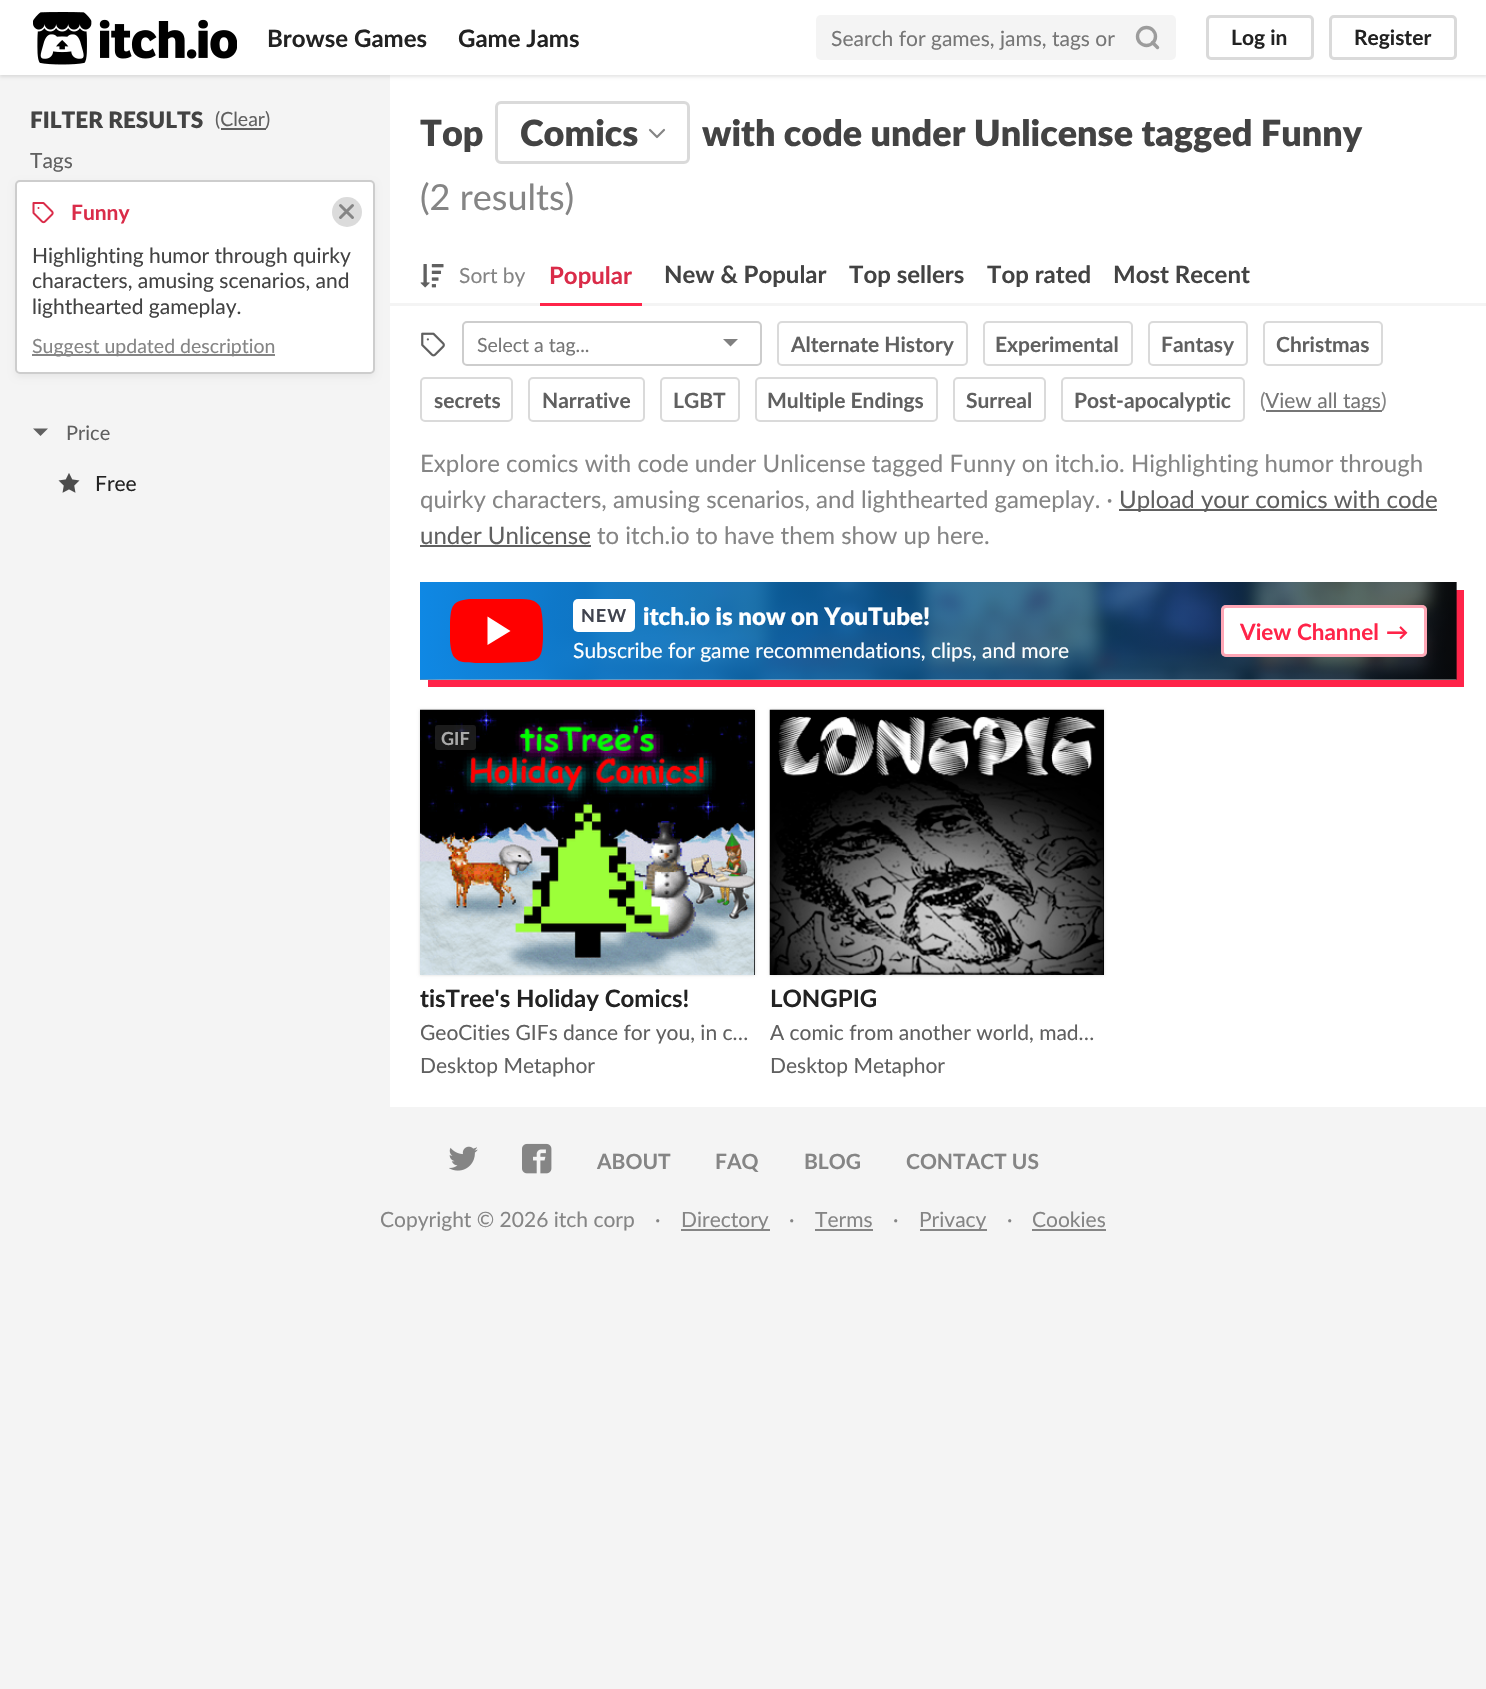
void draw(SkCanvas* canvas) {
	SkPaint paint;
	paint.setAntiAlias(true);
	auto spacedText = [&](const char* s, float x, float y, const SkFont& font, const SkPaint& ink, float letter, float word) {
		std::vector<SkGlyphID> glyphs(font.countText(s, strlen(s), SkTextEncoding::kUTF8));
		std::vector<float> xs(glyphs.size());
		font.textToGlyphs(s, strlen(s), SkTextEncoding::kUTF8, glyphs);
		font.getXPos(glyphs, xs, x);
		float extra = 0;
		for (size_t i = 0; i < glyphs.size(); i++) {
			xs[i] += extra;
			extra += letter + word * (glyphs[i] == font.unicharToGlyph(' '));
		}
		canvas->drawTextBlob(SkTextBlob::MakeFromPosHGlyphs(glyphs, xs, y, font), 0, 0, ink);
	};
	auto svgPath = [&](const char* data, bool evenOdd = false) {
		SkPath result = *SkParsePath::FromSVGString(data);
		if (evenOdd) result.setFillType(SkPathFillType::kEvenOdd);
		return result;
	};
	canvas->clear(0xfff4f4f4);
	paint.setColor(0xffffffff);
	canvas->drawRect(SkRect::MakeXYWH(390, 75, 1096, 1032), paint);
	paint.setColor(0x1a000000);
	paint.setMaskFilter(SkMaskFilter::MakeBlur(kNormal_SkBlurStyle, 1.5));
	canvas->drawRect(SkRect::MakeXYWH(0, 2, 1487, 75), paint);
	paint.setMaskFilter(nullptr);
	paint.setColor(0xffffffff);
	canvas->drawRect(SkRect::MakeXYWH(0, 0, 1486, 75), paint);
	canvas->drawImageRect(SkImages::DeferredFromEncodedData(SkData::MakeFromFileName("img1.png")), SkRect::MakeXYWH(33, 12, 204, 53), SkSamplingOptions());
	SkFont f1(fontMgr->matchFamilyStyle("Lato", SkFontStyle::Bold()), 24);
	f1.setSubpixel(true);
	paint.setColor(0xff222222);
	canvas->drawString("Browse Games", 267, 47, f1, paint);
	canvas->drawString("Game Jams", 458, 47, f1, paint);
	paint.setColor(0xfff4f4f4);
	canvas->drawRoundRect(SkRect::MakeXYWH(816, 15, 360, 45), 5, 5, paint);
	SkFont f2(fontMgr->matchFamilyStyle("Lato", SkFontStyle::Normal()), 21);
	f2.setSubpixel(true);
	paint.setColor(0xff767676);
	canvas->drawString("Search for games, jams, tags or", 831, 46, f2, paint);
	paint.setStroke(true);
	paint.setStrokeWidth(3.4);
	paint.setColor(0xff9c9c9c);
	canvas->drawCircle(1146.5, 36.5, 9, paint);
	paint.setStrokeCap(SkPaint::kRound_Cap);
	paint.setStrokeJoin(SkPaint::kRound_Join);
	canvas->drawPath(svgPath("M1157.5 47.5L1152.5 42.5"), paint);
	paint.setStrokeWidth(3);
	paint.setStrokeCap(SkPaint::kButt_Cap);
	paint.setStrokeJoin(SkPaint::kMiter_Join);
	paint.setColor(0xffdadada);
	canvas->drawRoundRect(SkRect::MakeXYWH(1207.5, 16.5, 105, 42), 3.5, 3.5, paint);
	SkFont f3(fontMgr->matchFamilyStyle("Lato", SkFontStyle::Bold()), 21);
	f3.setSubpixel(true);
	paint.setStroke(false);
	paint.setColor(0xff222222);
	canvas->drawString("Log in", 1231, 45, f3, paint);
	paint.setStroke(true);
	paint.setColor(0xffdadada);
	canvas->drawRoundRect(SkRect::MakeXYWH(1330.5, 16.5, 125, 42), 3.5, 3.5, paint);
	paint.setStroke(false);
	paint.setColor(0xff222222);
	canvas->drawString("Register", 1354, 45, f3, paint);
	SkFont f4(fontMgr->matchFamilyStyle("Lato", SkFontStyle(900, SkFontStyle::kNormal_Width, SkFontStyle::kUpright_Slant)), 22.5);
	f4.setSubpixel(true);
	paint.setColor(0xff434343);
	canvas->drawString("FILTER RESULTS", 30, 128, f4, paint);
	SkFont f5(fontMgr->matchFamilyStyle("Lato", SkFontStyle::Normal()), 19.5);
	f5.setSubpixel(true);
	paint.setColor(0xff606060);
	canvas->drawString("(Clear", 215, 126, f5, paint);
	canvas->drawRect(SkRect::MakeXYWH(221, 128, 45, 2), paint);
	canvas->drawString(")", 265, 126, f5, paint);
	canvas->drawString("Tags", 30, 168, f2, paint);
	paint.setColor(0x0d000000);
	paint.setMaskFilter(SkMaskFilter::MakeBlur(kNormal_SkBlurStyle, 3));
	canvas->drawRoundRect(SkRect::MakeXYWH(15, 183, 360, 194), 5, 5, paint);
	paint.setMaskFilter(nullptr);
	paint.setColor(0xffffffff);
	canvas->drawRoundRect(SkRect::MakeXYWH(16, 181, 358, 192), 4, 4, paint);
	paint.setStroke(true);
	paint.setStrokeWidth(2);
	paint.setColor(0xffcdcdcd);
	canvas->drawRoundRect(SkRect::MakeXYWH(16, 181, 358, 192), 4, 4, paint);
	canvas->drawImageRect(SkImages::DeferredFromEncodedData(SkData::MakeFromFileName("img2.png")), SkRect::MakeXYWH(32, 202, 22, 22), SkSamplingOptions());
	paint.setStroke(false);
	paint.setColor(0xffda2c49);
	canvas->drawString("Funny", 71, 220, f3, paint);
	paint.setColor(0xffdbdbdb);
	canvas->drawCircle(347, 212, 15, paint);
	paint.setStroke(true);
	paint.setStrokeWidth(3);
	paint.setStrokeCap(SkPaint::kRound_Cap);
	paint.setStrokeJoin(SkPaint::kRound_Join);
	paint.setColor(0xff858585);
	canvas->drawPath(svgPath("M352.5 205.5L340.5 217.5M340.5 205.5L352.5 217.5"), paint);
	paint.setStroke(false);
	paint.setColor(0xff434343);
	canvas->drawString("Highlighting humor through quirky", 32, 263, f2, paint);
	canvas->drawString("characters, amusing scenarios, and", 32, 288, f2, paint);
	canvas->drawString("lighthearted gameplay.", 32, 314, f2, paint);
	paint.setColor(0xff858585);
	canvas->drawRect(SkRect::MakeXYWH(32, 354, 243, 2), paint);
	canvas->drawString("Suggest updated description", 32, 353, f5, paint);
	paint.setColor(0xff606060);
	canvas->drawPath(svgPath("M33 428.5L40.5 436L48 428.5Z"), paint);
	SkFont f6(fontMgr->matchFamilyStyle("Lato", SkFontStyle::Normal()), 20);
	f6.setSubpixel(true);
	canvas->drawString("Price", 66, 440, f6, paint);
	canvas->drawImageRect(SkImages::DeferredFromEncodedData(SkData::MakeFromFileName("img3.png")), SkRect::MakeXYWH(58, 473, 22, 20), SkSamplingOptions());
	paint.setColor(0xff222222);
	canvas->drawString("Free", 95, 491, f2, paint);
	SkFont f7(fontMgr->matchFamilyStyle("Lato", SkFontStyle(900, SkFontStyle::kNormal_Width, SkFontStyle::kUpright_Slant)), 36);
	f7.setSubpixel(true);
	paint.setColor(0xff434343);
	canvas->drawString("Top", 420, 146, f7, paint);
	paint.setStroke(true);
	paint.setStrokeCap(SkPaint::kButt_Cap);
	paint.setStrokeJoin(SkPaint::kMiter_Join);
	paint.setColor(0xffdadada);
	canvas->drawRoundRect(SkRect::MakeXYWH(496.5, 102.5, 192, 60), 4.5, 4.5, paint);
	paint.setStroke(false);
	paint.setColor(0xff434343);
	canvas->drawString("Comics", 520, 146, f7, paint);
	paint.setStroke(true);
	paint.setStrokeWidth(2.2);
	paint.setStrokeCap(SkPaint::kRound_Cap);
	paint.setStrokeJoin(SkPaint::kRound_Join);
	paint.setColor(0xff858585);
	canvas->drawPath(svgPath("M650 130L657 137L664 130"), paint);
	paint.setStroke(false);
	paint.setColor(0xff434343);
	canvas->drawString("with code under Unlicense tagged Funny", 702, 146, f7, paint);
	SkFont f8(fontMgr->matchFamilyStyle("Lato", SkFontStyle::Normal()), 36);
	f8.setSubpixel(true);
	paint.setColor(0xff858585);
	canvas->drawString("(2 results)", 420, 210, f8, paint);
	paint.setColor(0xfff4f4f4);
	canvas->drawRect(SkRect::MakeXYWH(390, 303, 1096, 3), paint);
	canvas->drawImageRect(SkImages::DeferredFromEncodedData(SkData::MakeFromFileName("img4.png")), SkRect::MakeXYWH(420, 264, 24, 24), SkSamplingOptions());
	paint.setColor(0xff858585);
	canvas->drawString("Sort by", 459, 283, f2, paint);
	paint.setColor(0xffda2c49);
	canvas->drawString("Popular", 549, 284, f1, paint);
	paint.setColor(0xffff2449);
	canvas->drawRect(SkRect::MakeXYWH(540, 303, 102, 3), paint);
	paint.setColor(0xff434343);
	canvas->drawString("New & Popular", 664, 283, f1, paint);
	canvas->drawString("Top sellers", 849, 283, f1, paint);
	canvas->drawString("Top rated", 987, 283, f1, paint);
	canvas->drawString("Most Recent", 1113, 283, f1, paint);
	canvas->drawImageRect(SkImages::DeferredFromEncodedData(SkData::MakeFromFileName("img5.png")), SkRect::MakeXYWH(421, 332, 24, 25), SkSamplingOptions());
	paint.setStroke(true);
	paint.setStrokeWidth(2);
	paint.setStrokeCap(SkPaint::kButt_Cap);
	paint.setStrokeJoin(SkPaint::kMiter_Join);
	paint.setColor(0xffcdcdcd);
	canvas->drawRoundRect(SkRect::MakeXYWH(463, 322, 298, 43), 4, 4, paint);
	paint.setStroke(false);
	paint.setColor(0xff767676);
	canvas->drawString("Select a tag...", 477, 352, f5, paint);
	paint.setColor(0xff808080);
	canvas->drawPath(svgPath("M723 339H738L730.5 346.5Z"), paint);
	paint.setStroke(true);
	paint.setColor(0xffdadada);
	canvas->drawRoundRect(SkRect::MakeXYWH(778, 322, 189, 43), 4, 4, paint);
	paint.setStroke(false);
	paint.setColor(0xff606060);
	canvas->drawString("Alternate History", 791, 352, f3, paint);
	paint.setStroke(true);
	paint.setColor(0xffdadada);
	canvas->drawRoundRect(SkRect::MakeXYWH(984, 322, 148, 43), 4, 4, paint);
	paint.setStroke(false);
	paint.setColor(0xff606060);
	canvas->drawString("Experimental", 995, 352, f3, paint);
	paint.setStroke(true);
	paint.setColor(0xffdadada);
	canvas->drawRoundRect(SkRect::MakeXYWH(1149, 322, 98, 43), 4, 4, paint);
	paint.setStroke(false);
	paint.setColor(0xff606060);
	canvas->drawString("Fantasy", 1161, 352, f3, paint);
	paint.setStroke(true);
	paint.setColor(0xffdadada);
	canvas->drawRoundRect(SkRect::MakeXYWH(1264, 322, 118, 43), 4, 4, paint);
	paint.setStroke(false);
	paint.setColor(0xff606060);
	canvas->drawString("Christmas", 1276, 352, f3, paint);
	paint.setStroke(true);
	paint.setColor(0xffdadada);
	canvas->drawRoundRect(SkRect::MakeXYWH(421, 378, 91, 43), 4, 4, paint);
	paint.setStroke(false);
	paint.setColor(0xff606060);
	canvas->drawString("secrets", 434, 408, f3, paint);
	paint.setStroke(true);
	paint.setColor(0xffdadada);
	canvas->drawRoundRect(SkRect::MakeXYWH(529, 378, 115, 43), 4, 4, paint);
	paint.setStroke(false);
	paint.setColor(0xff606060);
	canvas->drawString("Narrative", 542, 408, f3, paint);
	paint.setStroke(true);
	paint.setColor(0xffdadada);
	canvas->drawRoundRect(SkRect::MakeXYWH(661, 378, 78, 43), 4, 4, paint);
	paint.setStroke(false);
	paint.setColor(0xff606060);
	canvas->drawString("LGBT", 673, 408, f3, paint);
	paint.setStroke(true);
	paint.setColor(0xffdadada);
	canvas->drawRoundRect(SkRect::MakeXYWH(756, 378, 181, 43), 4, 4, paint);
	paint.setStroke(false);
	paint.setColor(0xff606060);
	canvas->drawString("Multiple Endings", 767, 408, f3, paint);
	paint.setStroke(true);
	paint.setColor(0xffdadada);
	canvas->drawRoundRect(SkRect::MakeXYWH(954, 378, 91, 43), 4, 4, paint);
	paint.setStroke(false);
	paint.setColor(0xff606060);
	canvas->drawString("Surreal", 966, 408, f3, paint);
	paint.setStroke(true);
	paint.setColor(0xffdadada);
	canvas->drawRoundRect(SkRect::MakeXYWH(1062, 378, 182, 43), 4, 4, paint);
	paint.setStroke(false);
	paint.setColor(0xff606060);
	canvas->drawString("Post-apocalyptic", 1074, 408, f3, paint);
	paint.setColor(0xff858585);
	canvas->drawString("(", 1260, 408, f2, paint);
	paint.setColor(0xff767676);
	canvas->drawRect(SkRect::MakeXYWH(1266, 410, 116, 2), paint);
	canvas->drawString("View all tags", 1265, 408, f2, paint);
	paint.setColor(0xff858585);
	canvas->drawString(")", 1381, 408, f2, paint);
	SkFont f9(fontMgr->matchFamilyStyle("Lato", SkFontStyle::Normal()), 24);
	f9.setSubpixel(true);
	canvas->drawString("Explore comics with code under Unlicense tagged Funny on itch.io. Highlighting humor through", 420, 472, f9, paint);
	canvas->drawString("quirky characters, amusing scenarios, and lighthearted gameplay. ·", 420, 508, f9, paint);
	paint.setColor(0xff606060);
	canvas->drawRect(SkRect::MakeXYWH(1119, 509, 318, 2), paint);
	canvas->drawString("Upload your comics with code", 1119, 508, f9, paint);
	canvas->drawString("under Unlicense", 420, 544, f9, paint);
	canvas->drawRect(SkRect::MakeXYWH(420, 545, 171, 2), paint);
	paint.setColor(0xff858585);
	canvas->drawString("to itch.io to have them show up here.", 597, 544, f9, paint);
	paint.setColor(0xffff2449);
	canvas->drawPath(svgPath("M428 680V687H1464V590H1456V680Z"), paint);
	canvas->drawImageRect(SkImages::DeferredFromEncodedData(SkData::MakeFromFileName("img6.png")), SkRect::MakeXYWH(420, 582, 1037, 98), SkSamplingOptions());
	canvas->save();
	canvas->clipRect(SkRect::MakeXYWH(450, 599, 93, 64));
	paint.setColor(0xffff0000);
	canvas->drawPath(svgPath("M541 609C540 605 537 603 534 601C529 599 523 599 518 599H495H469C452 601 451 606 450 623C450 632 449 643 452 653C453 657 456 659 459 661C464 663 470 662 475 663H498L524 662C541 661 542 656 543 639C543 629 543 618 541 609Z"), paint);
	canvas->restore();
	paint.setColor(0xffffffff);
	canvas->drawPath(svgPath("M487.5 645L510.5 631L487.5 616.5Z"), paint);
	canvas->drawRoundRect(SkRect::MakeXYWH(573, 599, 62, 33), 5, 5, paint);
	SkFont f10(fontMgr->matchFamilyStyle("Lato", SkFontStyle::Bold()), 18);
	f10.setSubpixel(true);
	paint.setColor(0xff40434e);
	spacedText("NEW", 581, 622, f10, paint, 1, 0);
	SkFont f11(fontMgr->matchFamilyStyle("Lato", SkFontStyle(900, SkFontStyle::kNormal_Width, SkFontStyle::kUpright_Slant)), 24);
	f11.setSubpixel(true);
	paint.setColor(0xffffffff);
	canvas->drawString("itch.io is now on YouTube!", 643, 625, f11, paint);
	canvas->drawString("Subscribe for game recommendations, clips, and more", 573, 658, f2, paint);
	canvas->drawRoundRect(SkRect::MakeXYWH(1221, 605, 206, 52), 5, 5, paint);
	paint.setStroke(true);
	paint.setStrokeWidth(3);
	paint.setColor(0x66ff2449);
	canvas->drawRoundRect(SkRect::MakeXYWH(1222.5, 606.5, 203, 49), 3.5, 3.5, paint);
	SkFont f12(fontMgr->matchFamilyStyle("Lato", SkFontStyle::Bold()), 22.5);
	f12.setSubpixel(true);
	paint.setStroke(false);
	paint.setColor(0xffff2449);
	canvas->drawString("View Channel", 1240, 640, f12, paint);
	canvas->drawString("→", 1386, 640, f12, paint);
	paint.setColor(0x26000000);
	paint.setMaskFilter(SkMaskFilter::MakeBlur(kNormal_SkBlurStyle, 1.5));
	canvas->drawRect(SkRect::MakeXYWH(420, 710, 335, 265), paint);
	paint.setMaskFilter(nullptr);
	paint.setColor(0xff000000);
	canvas->drawRect(SkRect::MakeXYWH(754, 710, 1, 265), paint);
	canvas->drawImageRect(SkImages::DeferredFromEncodedData(SkData::MakeFromFileName("img7.png")), SkRect::MakeXYWH(420, 709, 335, 266), SkSamplingOptions());
	paint.setColor(0xcc222222);
	canvas->drawRoundRect(SkRect::MakeXYWH(435, 725, 41, 25), 3, 3, paint);
	paint.setColor(0xffa9a9a9);
	canvas->drawString("GIF", 441, 745, f10, paint);
	paint.setColor(0xff222222);
	canvas->drawString("tisTree's Holiday Comics!", 420, 1007, f1, paint);
	paint.setColor(0xff606060);
	canvas->drawString("GeoCities GIFs dance for you, in c…", 420, 1040, f2, paint);
	canvas->drawString("Desktop Metaphor", 420, 1073, f2, paint);
	paint.setColor(0x26000000);
	paint.setMaskFilter(SkMaskFilter::MakeBlur(kNormal_SkBlurStyle, 1.5));
	canvas->drawRect(SkRect::MakeXYWH(770, 710, 334, 265), paint);
	paint.setMaskFilter(nullptr);
	canvas->drawImageRect(SkImages::DeferredFromEncodedData(SkData::MakeFromFileName("img8.png")), SkRect::MakeXYWH(769, 709, 335, 266), SkSamplingOptions());
	paint.setColor(0xff222222);
	canvas->drawString("LONGPIG", 770, 1007, f1, paint);
	paint.setColor(0xff606060);
	canvas->drawString("A comic from another world, mad…", 770, 1040, f2, paint);
	canvas->drawString("Desktop Metaphor", 770, 1073, f2, paint);
	canvas->drawImageRect(SkImages::DeferredFromEncodedData(SkData::MakeFromFileName("img9.png")), SkRect::MakeXYWH(449, 1146, 29, 25), SkSamplingOptions());
	canvas->drawImageRect(SkImages::DeferredFromEncodedData(SkData::MakeFromFileName("img10.png")), SkRect::MakeXYWH(522, 1143, 30, 31), SkSamplingOptions());
	paint.setColor(0xff858585);
	canvas->drawString("ABOUT", 597, 1169, f3, paint);
	canvas->drawString("FAQ", 715, 1169, f3, paint);
	canvas->drawString("BLOG", 804, 1169, f3, paint);
	canvas->drawString("CONTACT US", 906, 1169, f3, paint);
	canvas->drawString("Copyright © 2026 itch corp", 380, 1227, f2, paint);
	canvas->drawString("·", 655, 1227, f2, paint);
	canvas->drawRect(SkRect::MakeXYWH(681, 1229, 89, 2), paint);
	canvas->drawString("Directory", 681, 1227, f2, paint);
	canvas->drawString("·", 789, 1227, f2, paint);
	canvas->drawString("Terms", 815, 1227, f2, paint);
	canvas->drawRect(SkRect::MakeXYWH(815, 1229, 58, 2), paint);
	canvas->drawString("·", 893, 1227, f2, paint);
	canvas->drawRect(SkRect::MakeXYWH(920, 1229, 67, 2), paint);
	canvas->drawString("Privacy", 919, 1227, f2, paint);
	canvas->drawString("·", 1007, 1227, f2, paint);
	canvas->drawString("Cookies", 1032, 1227, f2, paint);
	canvas->drawRect(SkRect::MakeXYWH(1032, 1229, 74, 2), paint);
}
